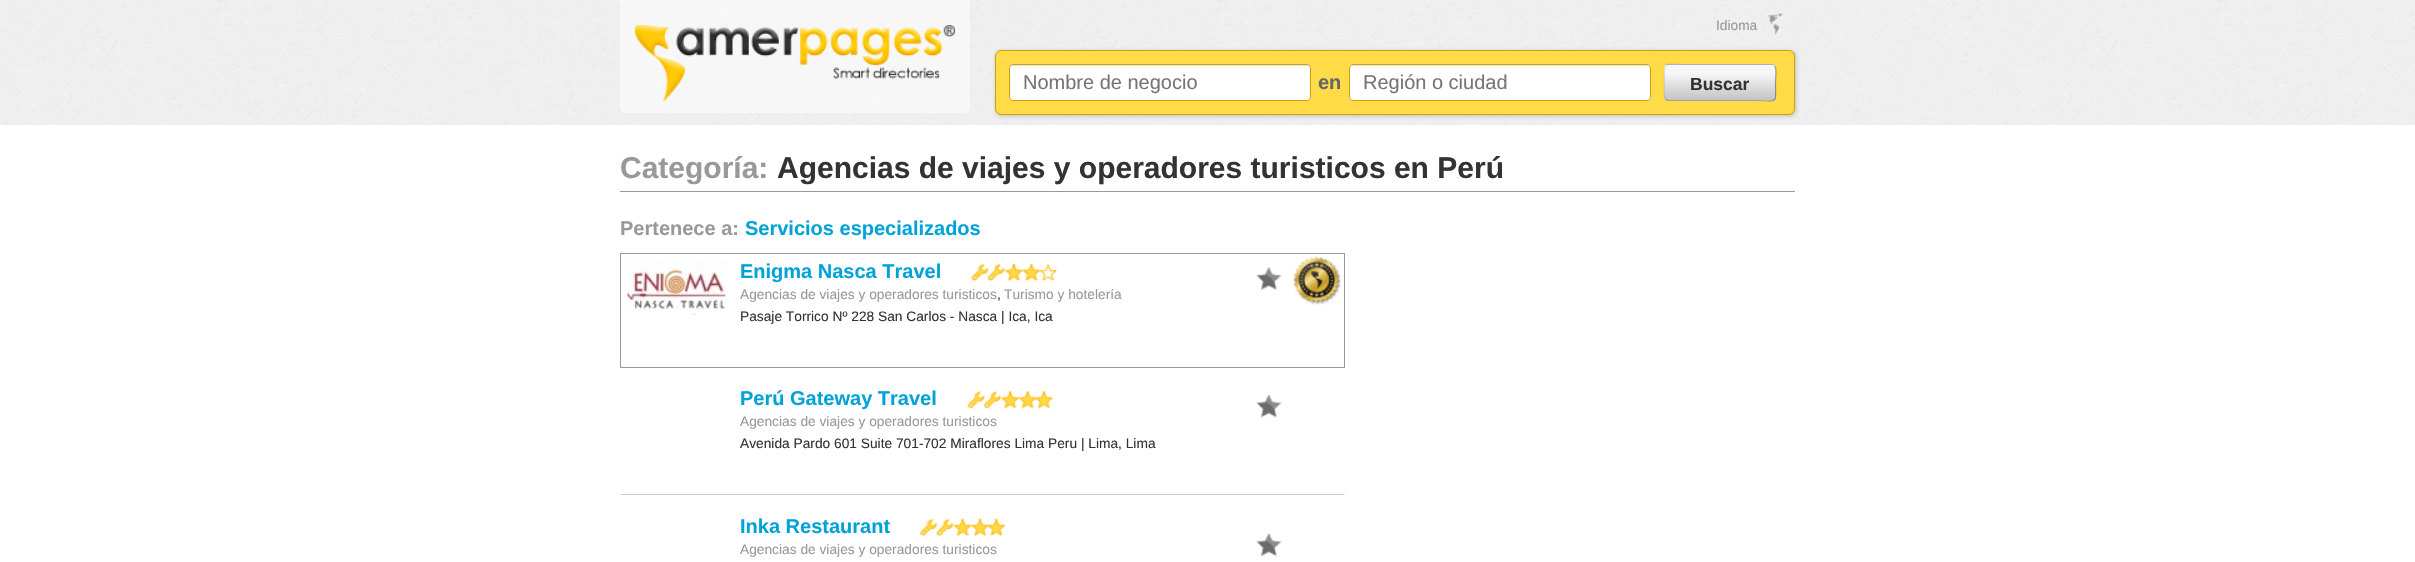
void draw(SkCanvas* canvas) {
	SkPaint paint;
	paint.setAntiAlias(true);
	auto svgPath = [&](const char* data, bool evenOdd = false) {
		SkPath result = *SkParsePath::FromSVGString(data);
		if (evenOdd) result.setFillType(SkPathFillType::kEvenOdd);
		return result;
	};
	canvas->clear(0xffffffff);
	canvas->drawImageRect(SkImages::DeferredFromEncodedData(SkData::MakeFromFileName("img1.png")), SkRect::MakeXYWH(0, 0, 2415, 125), SkSamplingOptions());
	paint.setColor(0x80ffffff);
	canvas->drawPath(svgPath("M620 0H970V107C970 110.5 967.5 113 964 113H626C622.5 113 620 110.5 620 107Z"), paint);
	canvas->drawImageRect(SkImages::DeferredFromEncodedData(SkData::MakeFromFileName("img2.png")), SkRect::MakeXYWH(635, 25, 320, 78), SkSamplingOptions());
	canvas->drawImageRect(SkImages::DeferredFromEncodedData(SkData::MakeFromFileName("img3.png")), SkRect::MakeXYWH(1767, 13, 17, 22), SkSamplingOptions());
	SkFont f1(fontMgr->matchFamilyStyle("Liberation Sans", SkFontStyle::Normal()), 13.75);
	f1.setSubpixel(true);
	paint.setColor(0xff999999);
	canvas->drawString("Idioma", 1716, 30, f1, paint);
	paint.setColor(0x33000000);
	paint.setMaskFilter(SkMaskFilter::MakeBlur(kNormal_SkBlurStyle, 2));
	canvas->drawRoundRect(SkRect::MakeXYWH(996, 51, 800, 65), 6, 6, paint);
	paint.setMaskFilter(nullptr);
	paint.setColor(0xffffdb48);
	canvas->drawRoundRect(SkRect::MakeXYWH(995.5, 50.5, 799, 64), 5.5, 5.5, paint);
	paint.setStroke(true);
	paint.setStrokeWidth(1);
	paint.setColor(0xffcca204);
	canvas->drawRoundRect(SkRect::MakeXYWH(995.5, 50.5, 799, 64), 5.5, 5.5, paint);
	paint.setStroke(false);
	paint.setColor(0xffffffff);
	canvas->drawRoundRect(SkRect::MakeXYWH(1009, 64, 302, 37), 4, 4, paint);
	paint.setColor(0xffe6e6e6);
	canvas->drawPath(svgPath("M1012 66H1308C1309 66 1310 67 1310 69V68C1310 66 1309 65 1308 65H1012C1011 65 1010 66 1010 68V69C1010 67 1011 66 1012 66Z"), paint);
	paint.setStroke(true);
	paint.setColor(0xffcca204);
	canvas->drawRoundRect(SkRect::MakeXYWH(1009.5, 64.5, 301, 36), 3.5, 3.5, paint);
	SkFont f2(fontMgr->matchFamilyStyle("Liberation Sans", SkFontStyle::Normal()), 20);
	f2.setSubpixel(true);
	paint.setStroke(false);
	paint.setColor(0xff757575);
	canvas->drawString("Nombre de negocio", 1023, 89, f2, paint);
	SkFont f3(fontMgr->matchFamilyStyle("Liberation Sans", SkFontStyle::Bold()), 20);
	f3.setSubpixel(true);
	paint.setColor(0xff666666);
	canvas->drawString("en", 1318, 89, f3, paint);
	paint.setColor(0xffffffff);
	canvas->drawRoundRect(SkRect::MakeXYWH(1349, 64, 302, 37), 4, 4, paint);
	paint.setColor(0xffe6e6e6);
	canvas->drawPath(svgPath("M1352 66H1648C1649 66 1650 67 1650 69V68C1650 66 1649 65 1648 65H1352C1351 65 1350 66 1350 68V69C1350 67 1351 66 1352 66Z"), paint);
	paint.setStroke(true);
	paint.setColor(0xffcca204);
	canvas->drawRoundRect(SkRect::MakeXYWH(1349.5, 64.5, 301, 36), 3.5, 3.5, paint);
	paint.setStroke(false);
	paint.setColor(0xff757575);
	canvas->drawString("Región o ciudad", 1363, 89, f2, paint);
	paint.setColor(0xfff4f4f4);
	canvas->drawRoundRect(SkRect::MakeXYWH(1664, 64, 112, 37), 4, 4, paint);
	canvas->save();
	canvas->clipPath(svgPath("M1668 64H1772C1774 64 1776 66 1776 68V97C1776 99 1774 101 1772 101H1668C1666 101 1664 99 1664 97V68C1664 66 1666 64 1668 64Z"), true);
	{
		const SkColor colors[] = {0x33ffffff, 0x33000000};
		const float stops[] = {0.25, 1};
		const SkPoint ends[] = {{1720, 30}, {1720, 65}};
		paint.setShader(SkGradientShader::MakeLinear(ends, colors, stops, 2, SkTileMode::kClamp));
		paint.setAlpha(255);
	}
	canvas->drawRect(SkRect::MakeXYWH(1664, 64, 112, 1), paint);
	{
		const SkColor colors[] = {0x33ffffff, 0x33000000};
		const float stops[] = {0.25, 1};
		const SkPoint ends[] = {{1720, 65}, {1720, 100}};
		paint.setShader(SkGradientShader::MakeLinear(ends, colors, stops, 2, SkTileMode::kClamp));
		paint.setAlpha(255);
	}
	canvas->drawRect(SkRect::MakeXYWH(1664, 65, 112, 35), paint);
	{
		const SkColor colors[] = {0x33ffffff, 0x33000000};
		const float stops[] = {0.25, 1};
		const SkPoint ends[] = {{1720, 100}, {1720, 135}};
		paint.setShader(SkGradientShader::MakeLinear(ends, colors, stops, 2, SkTileMode::kClamp));
		paint.setAlpha(255);
	}
	canvas->drawRect(SkRect::MakeXYWH(1664, 100, 112, 1), paint);
	canvas->restore();
	paint.setStroke(true);
	paint.setStrokeWidth(1.2);
	paint.setShader(nullptr);
	paint.setColor(0x59000000);
	canvas->drawPath(svgPath("M1774.5 65.5C1777 67.5 1775.5 79.5 1775.5 82.5C1775.5 105 1779.5 100.5 1755 100.5H1667.5L1665.5 99.5"), paint);
	paint.setColor(0x1a000000);
	canvas->drawPath(svgPath("M1665.5 99.5C1663 97.5 1664.5 85.5 1664.5 82.5C1664.5 60 1660.5 64.5 1685 64.5H1772.5L1774.5 65.5"), paint);
	SkFont f4(fontMgr->matchFamilyStyle("Liberation Sans", SkFontStyle::Bold()), 17.5);
	f4.setSubpixel(true);
	paint.setStroke(false);
	paint.setColor(0xff333333);
	canvas->drawString("Buscar", 1690, 90, f4, paint);
	paint.setColor(0xff999999);
	canvas->drawRect(SkRect::MakeXYWH(620, 191, 1175, 1), paint);
	SkFont f5(fontMgr->matchFamilyStyle("Liberation Sans", SkFontStyle::Bold()), 30);
	f5.setSubpixel(true);
	canvas->drawString("Categoría:", 620, 178, f5, paint);
	paint.setColor(0xff333333);
	canvas->drawString("Agencias de viajes y operadores turisticos en Perú", 777, 178, f5, paint);
	paint.setColor(0xff999999);
	canvas->drawString("Pertenece a:", 620, 235, f3, paint);
	paint.setColor(0xff00a2d7);
	canvas->drawString("Servicios especializados", 745, 235, f3, paint);
	paint.setStroke(true);
	paint.setStrokeWidth(1);
	paint.setColor(0xff999999);
	canvas->drawRect(SkRect::MakeXYWH(620.5, 253.5, 724, 114), paint);
	canvas->drawImageRect(SkImages::DeferredFromEncodedData(SkData::MakeFromFileName("img4.png")), SkRect::MakeXYWH(627, 260, 101, 55), SkSamplingOptions());
	paint.setStroke(false);
	paint.setColor(0xff00a2d7);
	canvas->drawString("Enigma Nasca Travel", 740, 278, f3, paint);
	canvas->drawImageRect(SkImages::DeferredFromEncodedData(SkData::MakeFromFileName("img5.png")), SkRect::MakeXYWH(971, 263, 86, 19), SkSamplingOptions());
	paint.setColor(0xff999999);
	canvas->drawString("Agencias de viajes y operadores turisticos", 740, 299, f1, paint);
	paint.setColor(0xff333333);
	canvas->drawString(",", 997, 299, f1, paint);
	paint.setColor(0xff999999);
	canvas->drawString("Turismo y hotelería", 1004, 299, f1, paint);
	paint.setColor(0xff333333);
	canvas->drawString("Pasaje Torrico Nº 228 San Carlos - Nasca | Ica, Ica", 740, 321, f1, paint);
	canvas->drawImageRect(SkImages::DeferredFromEncodedData(SkData::MakeFromFileName("img6.png")), SkRect::MakeXYWH(1256, 267, 26, 24), SkSamplingOptions());
	canvas->drawImageRect(SkImages::DeferredFromEncodedData(SkData::MakeFromFileName("img7.png")), SkRect::MakeXYWH(1293, 256, 49, 49), SkSamplingOptions());
	paint.setColor(0xffcccccc);
	canvas->drawPath(svgPath("M1345 495H620L621 494H1344Z"), paint);
	paint.setColor(0xff00a2d7);
	canvas->drawString("Perú Gateway Travel", 740, 405, f3, paint);
	canvas->drawImageRect(SkImages::DeferredFromEncodedData(SkData::MakeFromFileName("img8.png")), SkRect::MakeXYWH(967, 391, 86, 18), SkSamplingOptions());
	paint.setColor(0xff999999);
	canvas->drawString("Agencias de viajes y operadores turisticos", 740, 426, f1, paint);
	paint.setColor(0xff333333);
	canvas->drawString("Avenida Pardo 601 Suite 701-702 Miraflores Lima Peru | Lima, Lima", 740, 448, f1, paint);
	canvas->drawImageRect(SkImages::DeferredFromEncodedData(SkData::MakeFromFileName("img9.png")), SkRect::MakeXYWH(1256, 394, 26, 24), SkSamplingOptions());
	paint.setColor(0xff00a2d7);
	canvas->drawString("Inka Restaurant", 740, 533, f3, paint);
	canvas->drawImageRect(SkImages::DeferredFromEncodedData(SkData::MakeFromFileName("img10.png")), SkRect::MakeXYWH(920, 518, 85, 19), SkSamplingOptions());
	paint.setColor(0xff999999);
	canvas->drawString("Agencias de viajes y operadores turisticos", 740, 554, f1, paint);
	canvas->drawImageRect(SkImages::DeferredFromEncodedData(SkData::MakeFromFileName("img11.png")), SkRect::MakeXYWH(1256, 533, 26, 24), SkSamplingOptions());
}
